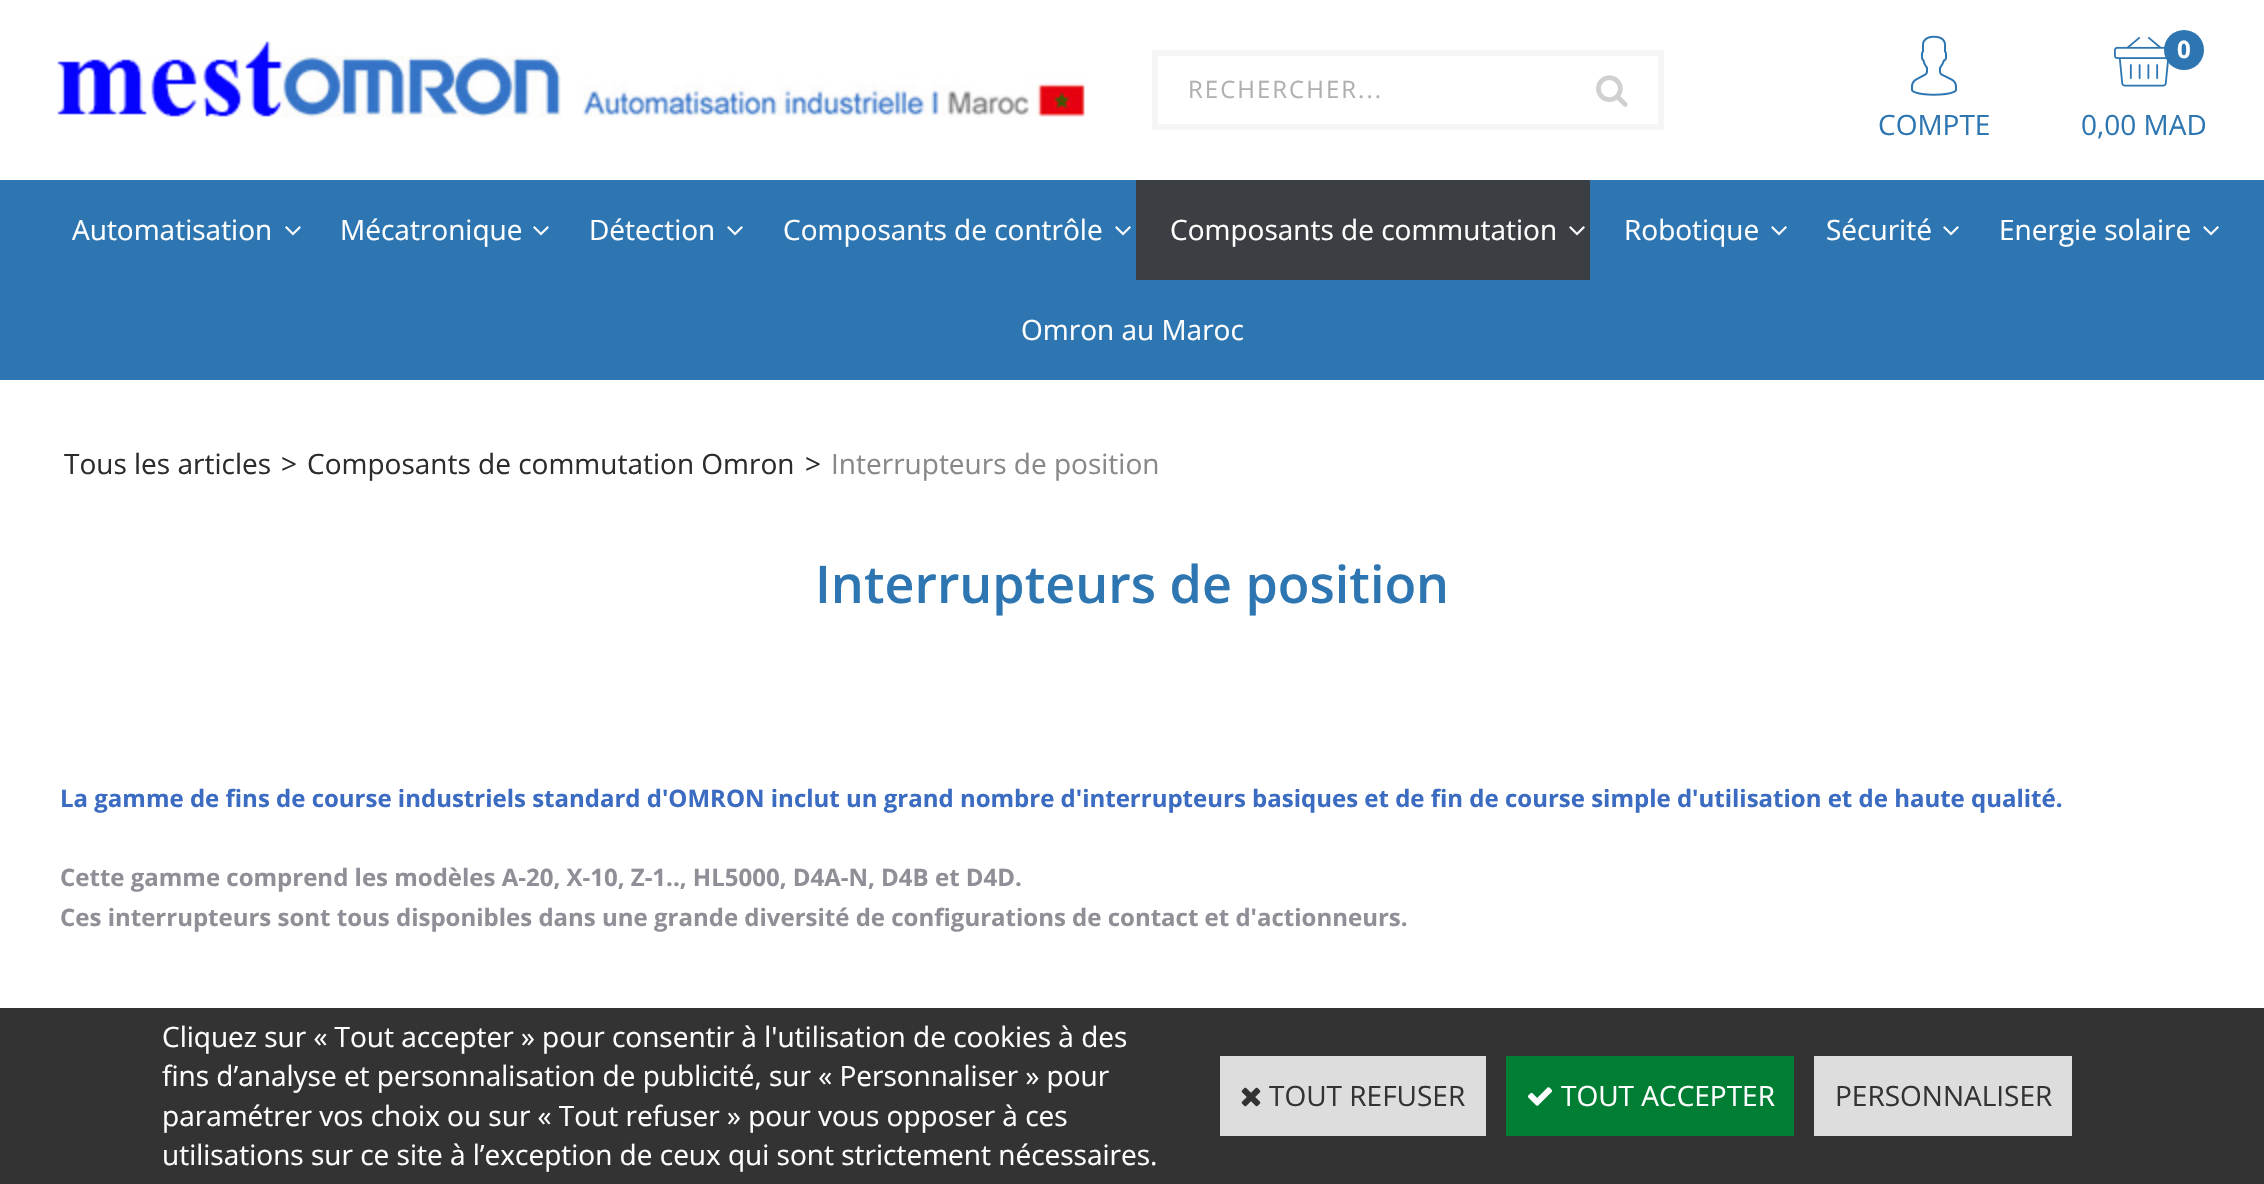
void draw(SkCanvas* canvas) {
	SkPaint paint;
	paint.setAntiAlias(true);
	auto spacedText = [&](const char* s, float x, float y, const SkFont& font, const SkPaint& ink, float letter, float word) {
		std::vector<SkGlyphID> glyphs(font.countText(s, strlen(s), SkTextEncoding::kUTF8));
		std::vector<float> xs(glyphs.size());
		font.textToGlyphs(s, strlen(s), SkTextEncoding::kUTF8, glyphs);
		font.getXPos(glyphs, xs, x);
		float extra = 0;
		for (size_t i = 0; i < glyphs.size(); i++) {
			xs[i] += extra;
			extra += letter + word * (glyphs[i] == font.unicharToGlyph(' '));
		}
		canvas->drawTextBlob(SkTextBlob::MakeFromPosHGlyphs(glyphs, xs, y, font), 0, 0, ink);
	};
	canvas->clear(0xffffffff);
	canvas->drawImageRect(SkImages::DeferredFromEncodedData(SkData::MakeFromFileName("img1.png")), SkRect::MakeXYWH(57, 41, 1028, 77), SkSamplingOptions());
	paint.setColor(0xfff5f5f5);
	canvas->drawRect(SkRect::MakeXYWH(1152, 50, 512, 6), paint);
	canvas->drawRect(SkRect::MakeXYWH(1152, 124, 414, 6), paint);
	canvas->drawRect(SkRect::MakeXYWH(1152, 50, 6, 80), paint);
	SkFont f1(fontMgr->matchFamilyStyle("Open Sans", SkFontStyle::Normal()), 24);
	f1.setSubpixel(true);
	paint.setColor(0xffb0b0b0);
	spacedText("RECHERCHER...", 1188, 98, f1, paint, 2, 0);
	paint.setColor(0xfff5f5f5);
	canvas->drawRect(SkRect::MakeXYWH(1658, 50, 6, 80), paint);
	canvas->drawRect(SkRect::MakeXYWH(1566, 124, 98, 6), paint);
	canvas->drawImageRect(SkImages::DeferredFromEncodedData(SkData::MakeFromFileName("img2.png")), SkRect::MakeXYWH(1596, 75, 32, 32), SkSamplingOptions());
	canvas->drawImageRect(SkImages::DeferredFromEncodedData(SkData::MakeFromFileName("img3.png")), SkRect::MakeXYWH(1910, 35, 48, 61), SkSamplingOptions());
	SkFont f2(fontMgr->matchFamilyStyle("Open Sans", SkFontStyle::Normal()), 28);
	f2.setSubpixel(true);
	paint.setColor(0xff2e76b1);
	canvas->drawString("COMPTE", 1878, 135, f2, paint);
	canvas->drawImageRect(SkImages::DeferredFromEncodedData(SkData::MakeFromFileName("img4.png")), SkRect::MakeXYWH(2114, 37, 55, 50), SkSamplingOptions());
	canvas->drawCircle(2184, 50, 20, paint);
	SkFont f3(fontMgr->matchFamilyStyle("Open Sans", SkFontStyle::Bold()), 24);
	f3.setSubpixel(true);
	paint.setColor(0xffffffff);
	canvas->drawString("0", 2177, 58, f3, paint);
	paint.setColor(0xff2e76b1);
	canvas->drawString("0,00 MAD", 2081, 135, f2, paint);
	canvas->drawRect(SkRect::MakeXYWH(0, 180, 2264, 200), paint);
	paint.setColor(0xffffffff);
	canvas->drawString("Automatisation", 72, 240, f2, paint);
	canvas->drawImageRect(SkImages::DeferredFromEncodedData(SkData::MakeFromFileName("img5.png")), SkRect::MakeXYWH(285, 226, 16, 10), SkSamplingOptions());
	canvas->drawString("Mécatronique", 340, 240, f2, paint);
	canvas->drawImageRect(SkImages::DeferredFromEncodedData(SkData::MakeFromFileName("img5.png")), SkRect::MakeXYWH(533, 226, 16, 10), SkSamplingOptions());
	canvas->drawString("Détection", 589, 240, f2, paint);
	canvas->drawImageRect(SkImages::DeferredFromEncodedData(SkData::MakeFromFileName("img5.png")), SkRect::MakeXYWH(727, 226, 16, 10), SkSamplingOptions());
	canvas->drawString("Composants de contrôle", 783, 240, f2, paint);
	canvas->drawImageRect(SkImages::DeferredFromEncodedData(SkData::MakeFromFileName("img5.png")), SkRect::MakeXYWH(1115, 226, 16, 10), SkSamplingOptions());
	paint.setColor(0xff3b3f43);
	canvas->drawRect(SkRect::MakeXYWH(1136, 180, 454, 100), paint);
	paint.setColor(0xffffffff);
	canvas->drawString("Composants de commutation", 1170, 240, f2, paint);
	canvas->drawImageRect(SkImages::DeferredFromEncodedData(SkData::MakeFromFileName("img6.png")), SkRect::MakeXYWH(1569, 226, 16, 10), SkSamplingOptions());
	canvas->drawString("Robotique", 1624, 240, f2, paint);
	canvas->drawImageRect(SkImages::DeferredFromEncodedData(SkData::MakeFromFileName("img5.png")), SkRect::MakeXYWH(1771, 226, 16, 10), SkSamplingOptions());
	canvas->drawString("Sécurité", 1826, 240, f2, paint);
	canvas->drawImageRect(SkImages::DeferredFromEncodedData(SkData::MakeFromFileName("img5.png")), SkRect::MakeXYWH(1943, 226, 16, 10), SkSamplingOptions());
	canvas->drawString("Energie solaire", 1999, 240, f2, paint);
	canvas->drawImageRect(SkImages::DeferredFromEncodedData(SkData::MakeFromFileName("img5.png")), SkRect::MakeXYWH(2203, 226, 16, 10), SkSamplingOptions());
	canvas->drawString("Omron au Maroc", 1021, 340, f2, paint);
	paint.setColor(0xff2d2c2c);
	canvas->drawString("Tous les articles", 64, 474, f2, paint);
	canvas->drawString(">", 281, 474, f2, paint);
	canvas->drawString("Composants de commutation Omron", 307, 474, f2, paint);
	canvas->drawString(">", 805, 474, f2, paint);
	paint.setColor(0xff888888);
	canvas->drawString("Interrupteurs de position", 831, 474, f2, paint);
	SkFont f4(fontMgr->matchFamilyStyle("Open Sans", SkFontStyle(600, SkFontStyle::kNormal_Width, SkFontStyle::kUpright_Slant)), 52);
	f4.setSubpixel(true);
	paint.setColor(0xff2e76b1);
	canvas->drawString("Interrupteurs de position", 815, 603, f4, paint);
	paint.setColor(0xff3b6cc2);
	canvas->drawString("La gamme de fins de course industriels standard d'OMRON inclut un grand nombre d'interrupteurs basiques et de fin de course simple d'utilisation et de haute qualité.", 60, 807, f3, paint);
	paint.setColor(0xff8f8f97);
	canvas->drawString("Cette gamme comprend les modèles A-20, X-10, Z-1.., HL5000, D4A-N, D4B et D4D.", 60, 886, f3, paint);
	canvas->drawString("Ces interrupteurs sont tous disponibles dans une grande diversité de configurations de contact et d'actionneurs.", 60, 926, f3, paint);
	paint.setColor(0xff333333);
	canvas->drawRect(SkRect::MakeXYWH(0, 1008, 2264, 176), paint);
	paint.setColor(0xffffffff);
	canvas->drawString("Cliquez sur « Tout accepter » pour consentir à l'utilisation de cookies à des", 162, 1047, f2, paint);
	canvas->drawString("fins d’analyse et personnalisation de publicité, sur « Personnaliser » pour", 162, 1086, f2, paint);
	canvas->drawString("paramétrer vos choix ou sur « Tout refuser » pour vous opposer à ces", 162, 1126, f2, paint);
	canvas->drawString("utilisations sur ce site à l’exception de ceux qui sont strictement nécessaires.", 162, 1165, f2, paint);
	paint.setColor(0xffdddddd);
	canvas->drawRect(SkRect::MakeXYWH(1220, 1056, 266, 80), paint);
	canvas->drawImageRect(SkImages::DeferredFromEncodedData(SkData::MakeFromFileName("img7.png")), SkRect::MakeXYWH(1241, 1087, 20, 20), SkSamplingOptions());
	paint.setColor(0xff333333);
	canvas->drawString("TOUT REFUSER", 1269, 1106, f2, paint);
	paint.setColor(0xff007e33);
	canvas->drawRect(SkRect::MakeXYWH(1506, 1056, 288, 80), paint);
	canvas->drawImageRect(SkImages::DeferredFromEncodedData(SkData::MakeFromFileName("img8.png")), SkRect::MakeXYWH(1527, 1087, 26, 19), SkSamplingOptions());
	paint.setColor(0xffffffff);
	canvas->drawString("TOUT ACCEPTER", 1561, 1106, f2, paint);
	paint.setColor(0xffdddddd);
	canvas->drawRect(SkRect::MakeXYWH(1814, 1056, 258, 80), paint);
	paint.setColor(0xff333333);
	canvas->drawString("PERSONNALISER", 1835, 1106, f2, paint);
}
